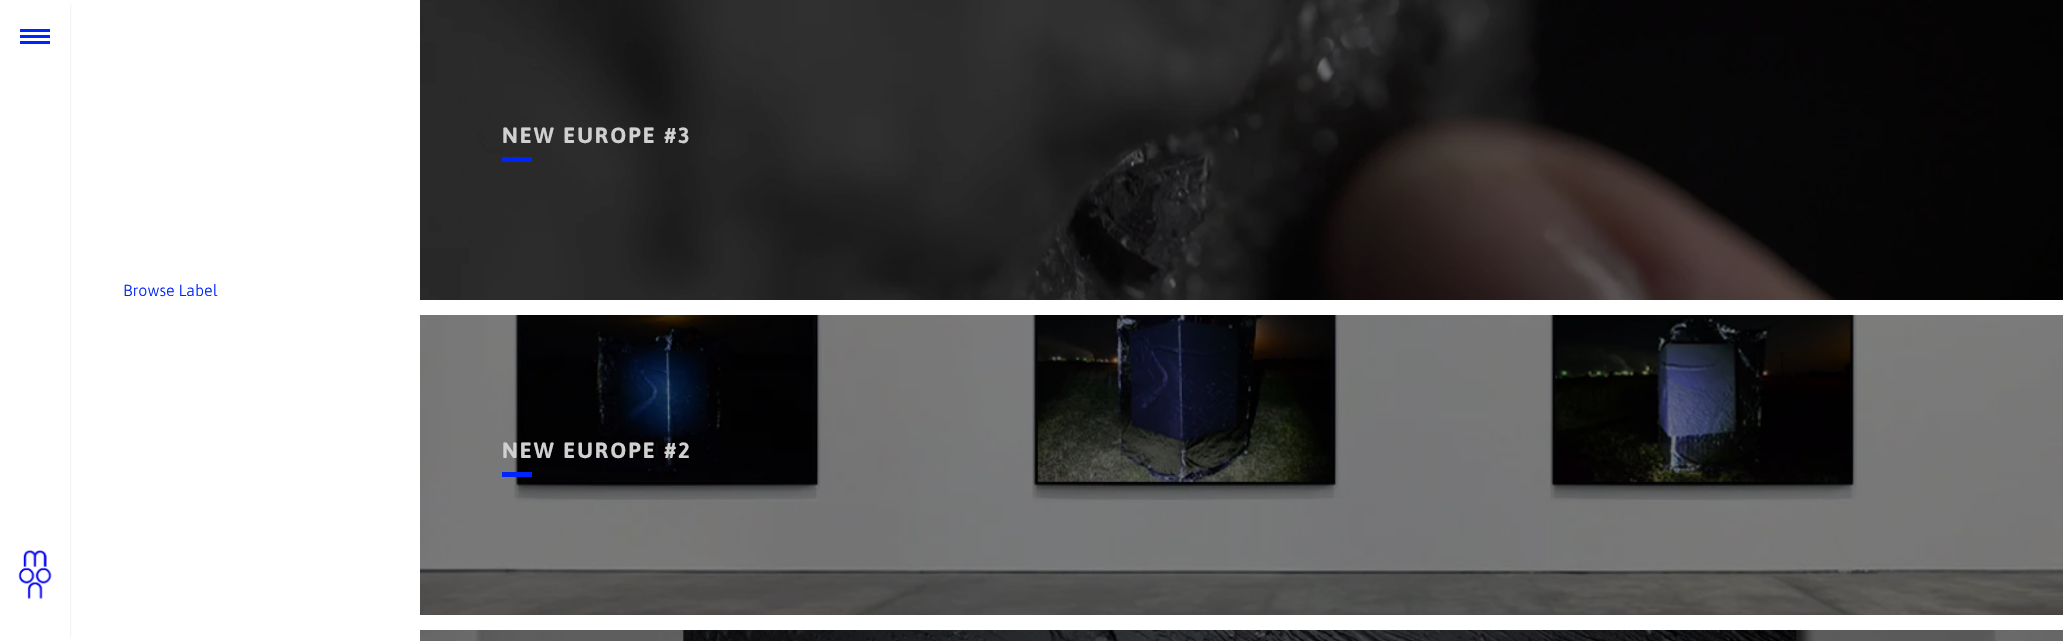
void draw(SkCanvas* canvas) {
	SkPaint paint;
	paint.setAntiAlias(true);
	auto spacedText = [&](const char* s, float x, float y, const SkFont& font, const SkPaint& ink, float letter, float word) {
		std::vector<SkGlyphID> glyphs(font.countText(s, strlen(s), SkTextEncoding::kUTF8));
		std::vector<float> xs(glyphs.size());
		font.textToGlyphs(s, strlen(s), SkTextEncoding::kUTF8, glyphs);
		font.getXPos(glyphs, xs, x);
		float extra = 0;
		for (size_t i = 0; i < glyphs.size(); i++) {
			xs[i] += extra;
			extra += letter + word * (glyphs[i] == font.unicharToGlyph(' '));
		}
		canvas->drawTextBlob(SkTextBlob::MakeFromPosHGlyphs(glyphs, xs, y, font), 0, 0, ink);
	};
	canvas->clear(0xffffffff);
	paint.setColor(0xff000000);
	paint.setMaskFilter(SkMaskFilter::MakeBlur(kNormal_SkBlurStyle, 2));
	canvas->drawRect(SkRect::MakeXYWH(5, 4, 62, 633), paint);
	paint.setMaskFilter(nullptr);
	paint.setColor(0xffffffff);
	canvas->drawRect(SkRect::MakeXYWH(0, 0, 70, 641), paint);
	canvas->drawImageRect(SkImages::DeferredFromEncodedData(SkData::MakeFromFileName("img1.png")), SkRect::MakeXYWH(18, 550, 34, 50), SkSamplingOptions());
	paint.setColor(0xff0025fc);
	canvas->drawRect(SkRect::MakeXYWH(20, 35, 30, 3), paint);
	canvas->drawRect(SkRect::MakeXYWH(20, 29, 30, 3), paint);
	canvas->drawRect(SkRect::MakeXYWH(20, 41, 30, 3), paint);
	SkFont f1(fontMgr->matchFamilyStyle("Asap", SkFontStyle(300, SkFontStyle::kNormal_Width, SkFontStyle::kUpright_Slant)), 16);
	f1.setSubpixel(true);
	canvas->drawString("Browse Label", 123, 296, f1, paint);
	canvas->drawImageRect(SkImages::DeferredFromEncodedData(SkData::MakeFromFileName("img2.png")), SkRect::MakeXYWH(420, 0, 1643, 300), SkSamplingOptions());
	SkFont f2(fontMgr->matchFamilyStyle("Asap", SkFontStyle::Bold()), 22);
	f2.setSubpixel(true);
	paint.setColor(0xffd0d0d0);
	spacedText("NEW EUROPE #3", 502, 143, f2, paint, 2, 0);
	paint.setColor(0xff0025fc);
	canvas->drawRect(SkRect::MakeXYWH(502, 157, 30, 5), paint);
	canvas->drawImageRect(SkImages::DeferredFromEncodedData(SkData::MakeFromFileName("img3.png")), SkRect::MakeXYWH(420, 315, 1643, 300), SkSamplingOptions());
	paint.setColor(0xffd0d0d0);
	spacedText("NEW EUROPE #2", 502, 458, f2, paint, 2, 0);
	paint.setColor(0xff0025fc);
	canvas->drawRect(SkRect::MakeXYWH(502, 472, 30, 5), paint);
	canvas->drawImageRect(SkImages::DeferredFromEncodedData(SkData::MakeFromFileName("img4.png")), SkRect::MakeXYWH(420, 630, 1643, 11), SkSamplingOptions());
}
